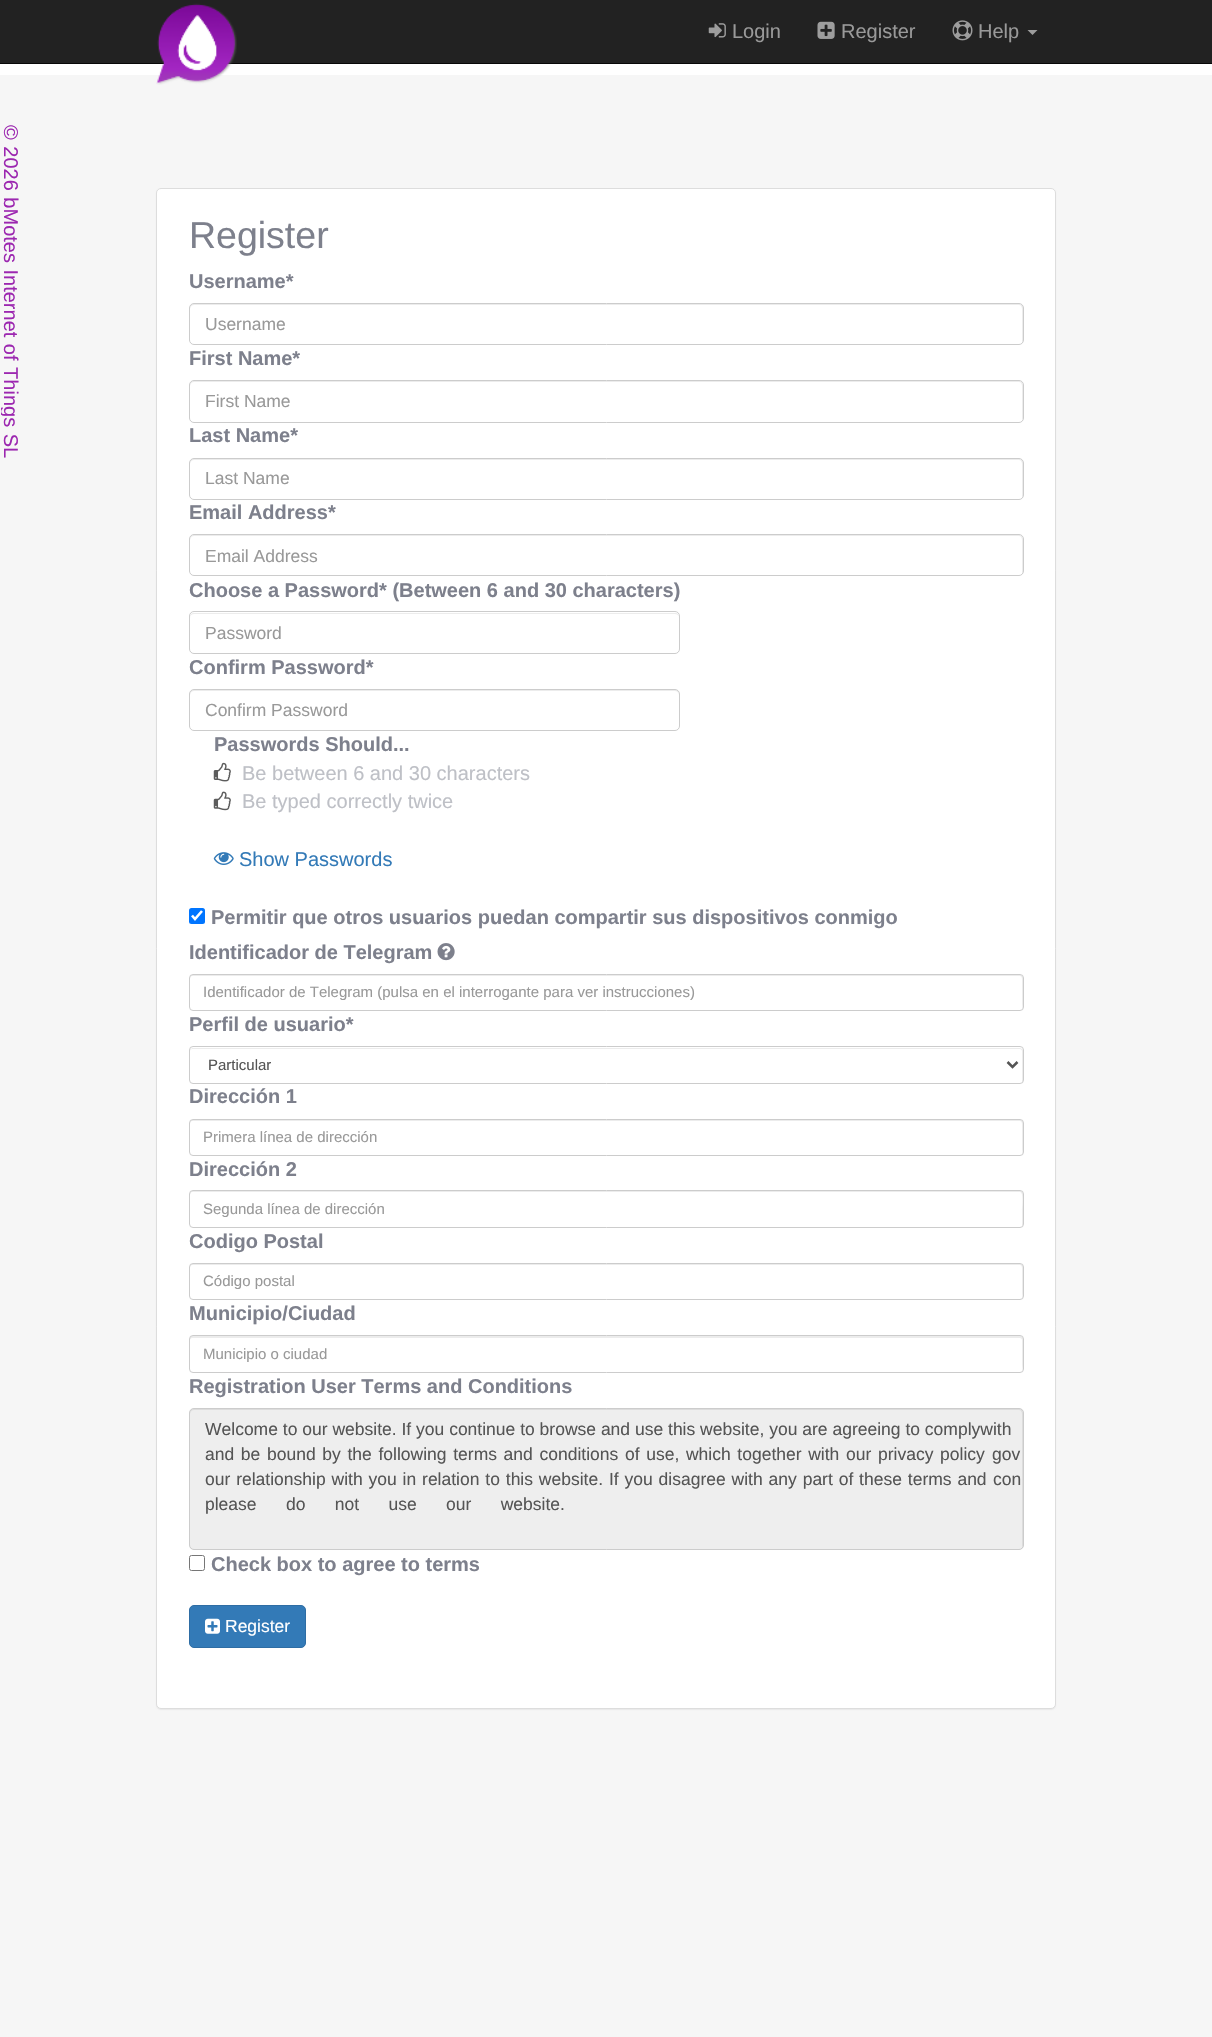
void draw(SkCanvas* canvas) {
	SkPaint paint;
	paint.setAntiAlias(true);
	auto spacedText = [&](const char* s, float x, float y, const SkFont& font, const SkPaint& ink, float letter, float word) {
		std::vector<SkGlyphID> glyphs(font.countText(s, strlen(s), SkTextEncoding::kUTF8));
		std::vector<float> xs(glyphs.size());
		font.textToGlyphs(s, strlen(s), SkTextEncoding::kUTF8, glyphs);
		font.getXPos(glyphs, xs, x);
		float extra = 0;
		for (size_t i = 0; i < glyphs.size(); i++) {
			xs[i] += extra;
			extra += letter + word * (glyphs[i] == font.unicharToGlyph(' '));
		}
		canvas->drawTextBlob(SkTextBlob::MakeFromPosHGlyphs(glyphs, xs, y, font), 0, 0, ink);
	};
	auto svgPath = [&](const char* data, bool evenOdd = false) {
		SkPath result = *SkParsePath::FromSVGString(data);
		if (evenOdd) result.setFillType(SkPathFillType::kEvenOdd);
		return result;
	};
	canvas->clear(0xffffffff);
	paint.setColor(0xff222222);
	canvas->drawRect(SkRect::MakeXYWH(0, 0, 1212, 63), paint);
	paint.setColor(0xff080808);
	canvas->drawRect(SkRect::MakeXYWH(0, 63, 1212, 1), paint);
	paint.setColor(0xfff6f6f6);
	canvas->drawRect(SkRect::MakeXYWH(0, 75, 1212, 1962), paint);
	canvas->drawImageRect(SkImages::DeferredFromEncodedData(SkData::MakeFromFileName("img1.png")), SkRect::MakeXYWH(156, 3, 81, 82), SkSamplingOptions());
	canvas->drawImageRect(SkImages::DeferredFromEncodedData(SkData::MakeFromFileName("img2.png")), SkRect::MakeXYWH(708, 23, 18, 15), SkSamplingOptions());
	SkFont f1(fontMgr->matchFamilyStyle("Liberation Sans", SkFontStyle::Normal()), 20);
	f1.setSubpixel(true);
	paint.setColor(0xff999999);
	canvas->drawString("Login", 732, 38, f1, paint);
	canvas->drawImageRect(SkImages::DeferredFromEncodedData(SkData::MakeFromFileName("img3.png")), SkRect::MakeXYWH(817, 21, 18, 18), SkSamplingOptions());
	canvas->drawString("Register", 841, 38, f1, paint);
	canvas->drawImageRect(SkImages::DeferredFromEncodedData(SkData::MakeFromFileName("img4.png")), SkRect::MakeXYWH(952, 20, 21, 21), SkSamplingOptions());
	canvas->drawString("Help", 978, 38, f1, paint);
	paint.setColor(0xff9d9d9d);
	canvas->drawPath(svgPath("M1027.5 30H1037.5L1032.5 35Z"), paint);
	canvas->save();
	canvas->clipRect(SkRect::MakeXYWH(1, 125, 23, 334));
	paint.setColor(0xff9c27b0);
	canvas->save();
	canvas->rotate(90, 4, 125);
	spacedText("© 2026 bMotes Internet of Things SL", 4, 125, f1, paint, 0, 1);
	canvas->restore();
	canvas->restore();
	paint.setColor(0x0d000000);
	paint.setMaskFilter(SkMaskFilter::MakeBlur(kNormal_SkBlurStyle, 0.5));
	canvas->drawRoundRect(SkRect::MakeXYWH(156, 189, 900, 1521), 5, 5, paint);
	paint.setMaskFilter(nullptr);
	paint.setColor(0xffffffff);
	canvas->drawRoundRect(SkRect::MakeXYWH(156.5, 188.5, 899, 1520), 4.5, 4.5, paint);
	paint.setStroke(true);
	paint.setStrokeWidth(1);
	paint.setColor(0xffdddddd);
	canvas->drawRoundRect(SkRect::MakeXYWH(156.5, 188.5, 899, 1520), 4.5, 4.5, paint);
	SkFont f2(fontMgr->matchFamilyStyle("Liberation Sans", SkFontStyle::Normal()), 37.5);
	f2.setSubpixel(true);
	paint.setStroke(false);
	paint.setColor(0xff7d808c);
	canvas->drawString("Register", 189, 248, f2, paint);
	SkFont f3(fontMgr->matchFamilyStyle("Liberation Sans", SkFontStyle::Bold()), 20);
	f3.setSubpixel(true);
	canvas->drawString("Username*", 189, 288, f3, paint);
	paint.setColor(0xffececec);
	canvas->drawPath(svgPath("M194 305H1019C1021 305 1022 307 1022 309V343L1023 341V306C1022 305 1021 304 1019 304H194C191 304 190 306 190 309C190 307 192 305 194 305Z"), paint);
	paint.setStroke(true);
	paint.setColor(0xffcccccc);
	canvas->drawRoundRect(SkRect::MakeXYWH(189.5, 303.5, 834, 41), 4.5, 4.5, paint);
	SkFont f4(fontMgr->matchFamilyStyle("Liberation Sans", SkFontStyle::Normal()), 17.5);
	f4.setSubpixel(true);
	paint.setStroke(false);
	paint.setColor(0xff999999);
	canvas->drawString("Username", 205, 330, f4, paint);
	paint.setColor(0xff7d808c);
	canvas->drawString("First Name*", 189, 365, f3, paint);
	paint.setColor(0xffececec);
	canvas->drawPath(svgPath("M194 382H1019C1021 382 1022 384 1022 386V420C1023 419 1023 418 1023 417V385C1023 383 1021 381 1019 381H194C192 381 190 383 190 385V386C190 384 192 382 194 382Z"), paint);
	paint.setStroke(true);
	paint.setColor(0xffcccccc);
	canvas->drawRoundRect(SkRect::MakeXYWH(189.5, 380.5, 834, 42), 4.5, 4.5, paint);
	paint.setStroke(false);
	paint.setColor(0xff999999);
	canvas->drawString("First Name", 205, 407, f4, paint);
	paint.setColor(0xff7d808c);
	canvas->drawString("Last Name*", 189, 442, f3, paint);
	paint.setColor(0xffececec);
	canvas->drawPath(svgPath("M194 460H1019C1021 460 1022 462 1022 464V498L1023 496V461C1022 460 1021 459 1019 459H194C191 459 190 461 190 464C190 462 192 460 194 460Z"), paint);
	paint.setStroke(true);
	paint.setColor(0xffcccccc);
	canvas->drawRoundRect(SkRect::MakeXYWH(189.5, 458.5, 834, 41), 4.5, 4.5, paint);
	paint.setStroke(false);
	paint.setColor(0xff999999);
	canvas->drawString("Last Name", 205, 484, f4, paint);
	paint.setColor(0xff7d808c);
	canvas->drawString("Email Address*", 189, 519, f3, paint);
	paint.setColor(0xffececec);
	canvas->drawPath(svgPath("M194 536H1019C1021 536 1022 538 1022 540V574C1023 573 1023 572 1023 571V539C1023 537 1021 535 1019 535H194C192 535 190 537 190 539V540C190 538 192 536 194 536Z"), paint);
	paint.setStroke(true);
	paint.setColor(0xffcccccc);
	canvas->drawRoundRect(SkRect::MakeXYWH(189.5, 534.5, 834, 41), 4.5, 4.5, paint);
	paint.setStroke(false);
	paint.setColor(0xff999999);
	canvas->drawString("Email Address", 205, 562, f4, paint);
	paint.setColor(0xff7d808c);
	canvas->drawString("Choose a Password* (Between 6 and 30 characters)", 189, 597, f3, paint);
	paint.setColor(0xffececec);
	canvas->drawPath(svgPath("M194 614H675C677 614 679 615 679 618C679 615 678 613 675 613H194C191 613 190 615 190 618C190 615 192 614 194 614Z"), paint);
	paint.setStroke(true);
	paint.setColor(0xffcccccc);
	canvas->drawRoundRect(SkRect::MakeXYWH(189.5, 611.5, 490, 42), 4.5, 4.5, paint);
	paint.setStroke(false);
	paint.setColor(0xff999999);
	canvas->drawString("Password", 205, 639, f4, paint);
	paint.setColor(0xff7d808c);
	canvas->drawString("Confirm Password*", 189, 674, f3, paint);
	paint.setColor(0xffececec);
	canvas->drawPath(svgPath("M194 691H675C677 691 679 693 679 695C679 692 678 690 675 690H194C191 690 190 692 190 695C190 693 192 691 194 691Z"), paint);
	paint.setStroke(true);
	paint.setColor(0xffcccccc);
	canvas->drawRoundRect(SkRect::MakeXYWH(189.5, 689.5, 490, 41), 4.5, 4.5, paint);
	paint.setStroke(false);
	paint.setColor(0xff999999);
	canvas->drawString("Confirm Password", 205, 716, f4, paint);
	paint.setColor(0xff7d808c);
	canvas->drawString("Passwords Should...", 214, 751, f3, paint);
	canvas->drawImageRect(SkImages::DeferredFromEncodedData(SkData::MakeFromFileName("img5.png")), SkRect::MakeXYWH(213, 762, 18, 20), SkSamplingOptions());
	paint.setColor(0xffbec0c6);
	canvas->drawString("Be between 6 and 30 characters", 242, 780, f1, paint);
	canvas->drawImageRect(SkImages::DeferredFromEncodedData(SkData::MakeFromFileName("img6.png")), SkRect::MakeXYWH(213, 791, 18, 20), SkSamplingOptions());
	canvas->drawString("Be typed correctly twice", 242, 808, f1, paint);
	canvas->drawImageRect(SkImages::DeferredFromEncodedData(SkData::MakeFromFileName("img7.png")), SkRect::MakeXYWH(213, 852, 21, 13), SkSamplingOptions());
	paint.setColor(0xff337ab7);
	canvas->drawString("Show Passwords", 239, 866, f1, paint);
	paint.setColor(0xff0075ff);
	canvas->drawRoundRect(SkRect::MakeXYWH(189, 908, 16, 16), 2.5, 2.5, paint);
	paint.setStroke(true);
	paint.setStrokeWidth(2.6);
	paint.setColor(0xffffffff);
	canvas->drawPath(svgPath("M192 915.5L195 919L202 911"), paint);
	paint.setStroke(false);
	paint.setColor(0xff7d808c);
	canvas->drawString("Permitir que otros usuarios puedan compartir sus dispositivos conmigo", 211, 924, f3, paint);
	canvas->drawString("Identificador de Telegram", 189, 959, f3, paint);
	canvas->drawImageRect(SkImages::DeferredFromEncodedData(SkData::MakeFromFileName("img8.png")), SkRect::MakeXYWH(437, 943, 18, 18), SkSamplingOptions());
	paint.setColor(0xffececec);
	canvas->drawPath(svgPath("M192 976H1020C1021 976 1022 977 1022 979V1010C1024 1008 1023 982 1023 978C1023 976 1022 975 1020 975H192C190 975 190 977 190 979C190 977 191 976 192 976Z"), paint);
	paint.setStroke(true);
	paint.setStrokeWidth(1);
	paint.setColor(0xffcccccc);
	canvas->drawRoundRect(SkRect::MakeXYWH(189.5, 974.5, 834, 36), 3.5, 3.5, paint);
	SkFont f5(fontMgr->matchFamilyStyle("Liberation Sans", SkFontStyle::Normal()), 15);
	f5.setSubpixel(true);
	paint.setStroke(false);
	paint.setColor(0xff999999);
	canvas->drawString("Identificador de Telegram (pulsa en el interrogante para ver instrucciones)", 203, 997, f5, paint);
	paint.setColor(0xff7d808c);
	canvas->drawString("Perfil de usuario*", 189, 1031, f3, paint);
	paint.setColor(0xffececec);
	canvas->drawPath(svgPath("M192 1049H1020C1021 1049 1022 1050 1022 1051V1083L1023 1081V1050C1022 1049 1021 1048 1020 1048H192C192 1048 191 1049 190 1050V1051C190 1050 191 1049 192 1049Z"), paint);
	paint.setStroke(true);
	paint.setColor(0xffcccccc);
	canvas->drawRoundRect(SkRect::MakeXYWH(189.5, 1046.5, 834, 37), 3.5, 3.5, paint);
	paint.setStrokeWidth(2.5);
	paint.setColor(0xff555555);
	canvas->drawPath(svgPath("M1007.5 1062L1012.5 1067L1017.5 1062"), paint);
	paint.setStroke(false);
	canvas->drawString("Particular", 208, 1070, f5, paint);
	paint.setColor(0xff7d808c);
	canvas->drawString("Dirección 1", 189, 1103, f3, paint);
	paint.setColor(0xffececec);
	canvas->drawPath(svgPath("M192 1121H1020C1021 1121 1022 1122 1022 1124V1155C1024 1153 1023 1127 1023 1122C1023 1121 1022 1120 1020 1120H192C190 1120 190 1122 190 1124C190 1122 191 1121 192 1121Z"), paint);
	paint.setStroke(true);
	paint.setStrokeWidth(1);
	paint.setColor(0xffcccccc);
	canvas->drawRoundRect(SkRect::MakeXYWH(189.5, 1119.5, 834, 36), 3.5, 3.5, paint);
	paint.setStroke(false);
	paint.setColor(0xff999999);
	canvas->drawString("Primera línea de dirección", 203, 1142, f5, paint);
	paint.setColor(0xff7d808c);
	canvas->drawString("Dirección 2", 189, 1176, f3, paint);
	paint.setColor(0xffececec);
	canvas->drawPath(svgPath("M192 1192H1020C1024 1192 1022 1208 1022 1210V1226C1023 1225 1023 1224 1023 1224V1194C1023 1192 1022 1191 1020 1191H192C191 1191 190 1192 190 1194V1195C190 1194 191 1192 192 1192Z"), paint);
	paint.setStroke(true);
	paint.setColor(0xffcccccc);
	canvas->drawRoundRect(SkRect::MakeXYWH(189.5, 1190.5, 834, 37), 3.5, 3.5, paint);
	paint.setStroke(false);
	paint.setColor(0xff999999);
	canvas->drawString("Segunda línea de dirección", 203, 1214, f5, paint);
	paint.setColor(0xff7d808c);
	canvas->drawString("Codigo Postal", 189, 1248, f3, paint);
	paint.setColor(0xffececec);
	canvas->drawPath(svgPath("M192 1265H1020C1021 1265 1022 1266 1022 1268V1299C1024 1297 1023 1271 1023 1266C1023 1265 1022 1264 1020 1264H192C190 1264 190 1266 190 1268C190 1266 191 1265 192 1265Z"), paint);
	paint.setStroke(true);
	paint.setColor(0xffcccccc);
	canvas->drawRoundRect(SkRect::MakeXYWH(189.5, 1263.5, 834, 36), 3.5, 3.5, paint);
	paint.setStroke(false);
	paint.setColor(0xff999999);
	canvas->drawString("Código postal", 203, 1286, f5, paint);
	paint.setColor(0xff7d808c);
	canvas->drawString("Municipio/Ciudad", 189, 1320, f3, paint);
	paint.setColor(0xffececec);
	canvas->drawPath(svgPath("M192 1338H1020C1021 1338 1022 1339 1022 1340V1371C1024 1369 1023 1343 1023 1338C1023 1337 1022 1336 1020 1336H192C190 1336 190 1338 190 1340C190 1339 191 1338 192 1338Z"), paint);
	paint.setStroke(true);
	paint.setColor(0xffcccccc);
	canvas->drawRoundRect(SkRect::MakeXYWH(189.5, 1335.5, 834, 37), 3.5, 3.5, paint);
	paint.setStroke(false);
	paint.setColor(0xff999999);
	canvas->drawString("Municipio o ciudad", 203, 1359, f5, paint);
	paint.setColor(0xff7d808c);
	canvas->drawString("Registration User Terms and Conditions", 189, 1393, f3, paint);
	paint.setColor(0xffeeeeee);
	canvas->drawRoundRect(SkRect::MakeXYWH(189, 1408, 835, 142), 5, 5, paint);
	paint.setColor(0xffdcdcdc);
	canvas->drawPath(svgPath("M194 1410H1019C1021 1410 1022 1412 1022 1414V1546V1548C1022 1547 1023 1546 1023 1545V1413C1023 1411 1021 1409 1019 1409H194C192 1409 190 1411 190 1413V1414C190 1412 192 1410 194 1410Z"), paint);
	paint.setStroke(true);
	paint.setColor(0xffcccccc);
	canvas->drawRoundRect(SkRect::MakeXYWH(189.5, 1408.5, 834, 141), 4.5, 4.5, paint);
	paint.setStroke(false);
	paint.setColor(0xff555555);
	canvas->drawString("Welcome to our website. If you continue to browse and use this website, you are agreeing to complywith", 205, 1435, f4, paint);
	spacedText("and be bound by the following terms and conditions of use, which together with our privacy policy", 205, 1460, f4, paint, 0, 1.8);
	canvas->drawString("gov", 992, 1460, f4, paint);
	spacedText("our relationship with you in relation to this website. If you disagree with any part of these terms and", 205, 1485, f4, paint, 0, 1);
	canvas->drawString("con", 993, 1485, f4, paint);
	spacedText("please do not use our website.", 205, 1510, f4, paint, 0, 24.5);
	paint.setStroke(true);
	paint.setColor(0xff767676);
	canvas->drawRoundRect(SkRect::MakeXYWH(189.5, 1555.5, 15, 15), 2, 2, paint);
	paint.setStroke(false);
	paint.setColor(0xff7d808c);
	canvas->drawString("Check box to agree to terms", 211, 1571, f3, paint);
	paint.setColor(0xff337ab7);
	canvas->drawRoundRect(SkRect::MakeXYWH(189.5, 1605.5, 116, 42), 4.5, 4.5, paint);
	paint.setStroke(true);
	paint.setColor(0xff2e6da4);
	canvas->drawRoundRect(SkRect::MakeXYWH(189.5, 1605.5, 116, 42), 4.5, 4.5, paint);
	canvas->drawImageRect(SkImages::DeferredFromEncodedData(SkData::MakeFromFileName("img9.png")), SkRect::MakeXYWH(205, 1618, 15, 16), SkSamplingOptions());
	paint.setStroke(false);
	paint.setColor(0xffffffff);
	canvas->drawString("Register", 225, 1632, f4, paint);
}
